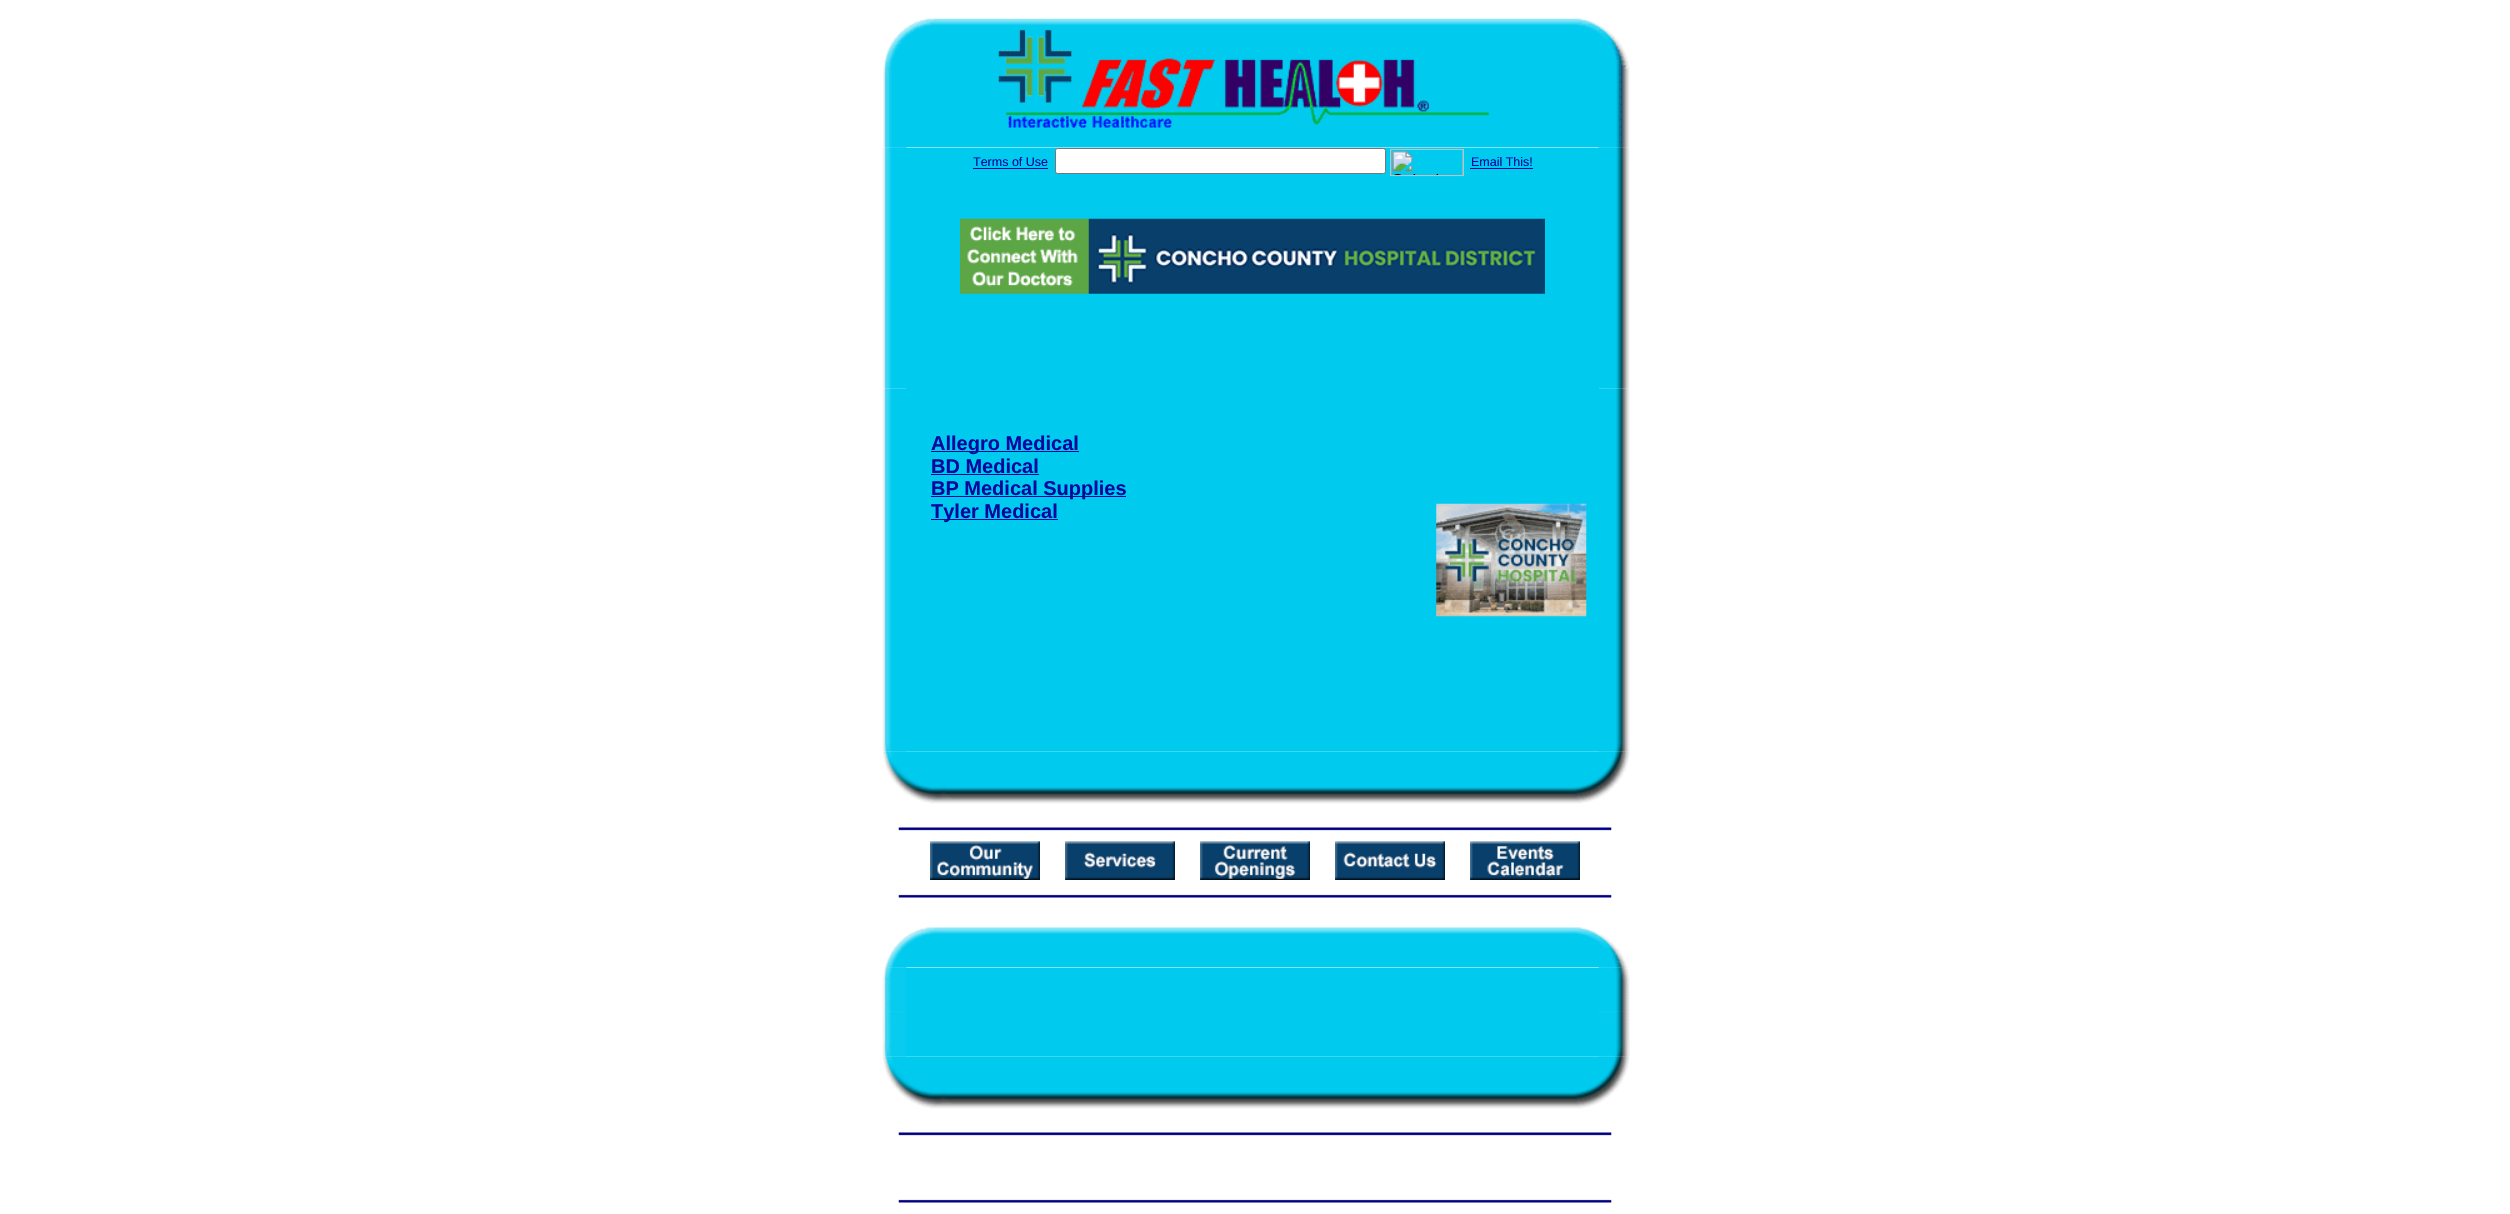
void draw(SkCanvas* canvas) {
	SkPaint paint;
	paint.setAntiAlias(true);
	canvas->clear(0xffffffff);
	canvas->drawImageRect(SkImages::DeferredFromEncodedData(SkData::MakeFromFileName("img2.png")), SkRect::MakeXYWH(882, 147, 25, 242), SkSamplingOptions());
	paint.setColor(0xff00cbef);
	canvas->drawRect(SkRect::MakeXYWH(906, 148, 693, 603), paint);
	canvas->drawImageRect(SkImages::DeferredFromEncodedData(SkData::MakeFromFileName("img7.png")), SkRect::MakeXYWH(1598, 147, 32, 242), SkSamplingOptions());
	canvas->drawImageRect(SkImages::DeferredFromEncodedData(SkData::MakeFromFileName("img1.png")), SkRect::MakeXYWH(883, 18, 747, 130), SkSamplingOptions());
	canvas->drawImageRect(SkImages::DeferredFromEncodedData(SkData::MakeFromFileName("img3.png")), SkRect::MakeXYWH(884, 147, 23, 145), SkSamplingOptions());
	SkFont f1(fontMgr->matchFamilyStyle("Liberation Sans", SkFontStyle::Normal()), 12.5);
	f1.setSubpixel(true);
	paint.setColor(0xff00079d);
	canvas->drawString("Terms of Use", 973, 166, f1, paint);
	canvas->drawRect(SkRect::MakeXYWH(973, 168, 75, 1), paint);
	paint.setColor(0xffffffff);
	canvas->drawRoundRect(SkRect::MakeXYWH(1055.5, 148.5, 330, 25), 2, 2, paint);
	paint.setStroke(true);
	paint.setStrokeWidth(1);
	paint.setColor(0xff767676);
	canvas->drawRoundRect(SkRect::MakeXYWH(1055.5, 148.5, 330, 25), 2, 2, paint);
	canvas->drawImageRect(SkImages::DeferredFromEncodedData(SkData::MakeFromFileName("img4.png")), SkRect::MakeXYWH(1390, 148, 74, 29), SkSamplingOptions());
	paint.setColor(0xffc0c0c0);
	canvas->drawRect(SkRect::MakeXYWH(1390.5, 149.5, 73, 26), paint);
	paint.setStroke(false);
	paint.setColor(0xff00079d);
	canvas->drawString("Email This!", 1471, 166, f1, paint);
	canvas->drawRect(SkRect::MakeXYWH(1470, 168, 63, 1), paint);
	canvas->drawImageRect(SkImages::DeferredFromEncodedData(SkData::MakeFromFileName("img5.png")), SkRect::MakeXYWH(960, 218, 585, 76), SkSamplingOptions());
	canvas->drawRect(SkRect::MakeXYWH(931, 451, 148, 1), paint);
	SkFont f2(fontMgr->matchFamilyStyle("Liberation Sans", SkFontStyle::Bold()), 20);
	f2.setSubpixel(true);
	canvas->drawString("Allegro Medical", 931, 450, f2, paint);
	canvas->drawString("BD Medical", 931, 473, f2, paint);
	canvas->drawRect(SkRect::MakeXYWH(931, 474, 108, 1), paint);
	canvas->drawRect(SkRect::MakeXYWH(931, 496, 195, 1), paint);
	canvas->drawString("BP Medical Supplies", 931, 495, f2, paint);
	canvas->drawRect(SkRect::MakeXYWH(931, 519, 127, 1), paint);
	canvas->drawString("Tyler Medical", 931, 518, f2, paint);
	canvas->drawImageRect(SkImages::DeferredFromEncodedData(SkData::MakeFromFileName("img6.png")), SkRect::MakeXYWH(1436, 503, 151, 114), SkSamplingOptions());
	canvas->drawImageRect(SkImages::DeferredFromEncodedData(SkData::MakeFromFileName("img8.png")), SkRect::MakeXYWH(1598, 147, 30, 1), SkSamplingOptions());
	canvas->drawImageRect(SkImages::DeferredFromEncodedData(SkData::MakeFromFileName("img9.png")), SkRect::MakeXYWH(882, 388, 25, 364), SkSamplingOptions());
	canvas->drawImageRect(SkImages::DeferredFromEncodedData(SkData::MakeFromFileName("img10.png")), SkRect::MakeXYWH(884, 744, 23, 8), SkSamplingOptions());
	canvas->drawImageRect(SkImages::DeferredFromEncodedData(SkData::MakeFromFileName("img11.png")), SkRect::MakeXYWH(1598, 388, 32, 364), SkSamplingOptions());
	canvas->drawImageRect(SkImages::DeferredFromEncodedData(SkData::MakeFromFileName("img12.png")), SkRect::MakeXYWH(1598, 598, 30, 154), SkSamplingOptions());
	canvas->drawImageRect(SkImages::DeferredFromEncodedData(SkData::MakeFromFileName("img13.png")), SkRect::MakeXYWH(883, 751, 747, 53), SkSamplingOptions());
	canvas->drawImageRect(SkImages::DeferredFromEncodedData(SkData::MakeFromFileName("img14.png")), SkRect::MakeXYWH(898, 827, 714, 4), SkSamplingOptions());
	canvas->drawImageRect(SkImages::DeferredFromEncodedData(SkData::MakeFromFileName("img15.png")), SkRect::MakeXYWH(930, 841, 110, 39), SkSamplingOptions());
	canvas->drawImageRect(SkImages::DeferredFromEncodedData(SkData::MakeFromFileName("img16.png")), SkRect::MakeXYWH(1065, 841, 110, 39), SkSamplingOptions());
	canvas->drawImageRect(SkImages::DeferredFromEncodedData(SkData::MakeFromFileName("img17.png")), SkRect::MakeXYWH(1200, 841, 110, 39), SkSamplingOptions());
	canvas->drawImageRect(SkImages::DeferredFromEncodedData(SkData::MakeFromFileName("img18.png")), SkRect::MakeXYWH(1335, 841, 110, 39), SkSamplingOptions());
	canvas->drawImageRect(SkImages::DeferredFromEncodedData(SkData::MakeFromFileName("img19.png")), SkRect::MakeXYWH(1470, 841, 110, 39), SkSamplingOptions());
	canvas->drawImageRect(SkImages::DeferredFromEncodedData(SkData::MakeFromFileName("img20.png")), SkRect::MakeXYWH(898, 894, 714, 4), SkSamplingOptions());
	canvas->drawImageRect(SkImages::DeferredFromEncodedData(SkData::MakeFromFileName("img22.png")), SkRect::MakeXYWH(882, 967, 25, 45), SkSamplingOptions());
	paint.setColor(0xff00cbef);
	canvas->drawRect(SkRect::MakeXYWH(906, 968, 693, 88), paint);
	canvas->drawImageRect(SkImages::DeferredFromEncodedData(SkData::MakeFromFileName("img24.png")), SkRect::MakeXYWH(1598, 967, 32, 45), SkSamplingOptions());
	canvas->drawImageRect(SkImages::DeferredFromEncodedData(SkData::MakeFromFileName("img21.png")), SkRect::MakeXYWH(884, 927, 745, 41), SkSamplingOptions());
	canvas->drawImageRect(SkImages::DeferredFromEncodedData(SkData::MakeFromFileName("img26.png")), SkRect::MakeXYWH(882, 1011, 25, 46), SkSamplingOptions());
	canvas->drawImageRect(SkImages::DeferredFromEncodedData(SkData::MakeFromFileName("img23.png")), SkRect::MakeXYWH(882, 967, 25, 45), SkSamplingOptions());
	canvas->drawImageRect(SkImages::DeferredFromEncodedData(SkData::MakeFromFileName("img28.png")), SkRect::MakeXYWH(1598, 1011, 32, 46), SkSamplingOptions());
	canvas->drawImageRect(SkImages::DeferredFromEncodedData(SkData::MakeFromFileName("img25.png")), SkRect::MakeXYWH(1598, 967, 32, 45), SkSamplingOptions());
	canvas->drawImageRect(SkImages::DeferredFromEncodedData(SkData::MakeFromFileName("img27.png")), SkRect::MakeXYWH(884, 1011, 23, 46), SkSamplingOptions());
	canvas->drawImageRect(SkImages::DeferredFromEncodedData(SkData::MakeFromFileName("img29.png")), SkRect::MakeXYWH(1598, 1011, 31, 46), SkSamplingOptions());
	canvas->drawImageRect(SkImages::DeferredFromEncodedData(SkData::MakeFromFileName("img30.png")), SkRect::MakeXYWH(883, 1056, 747, 53), SkSamplingOptions());
	canvas->drawImageRect(SkImages::DeferredFromEncodedData(SkData::MakeFromFileName("img14.png")), SkRect::MakeXYWH(898, 1132, 714, 4), SkSamplingOptions());
	canvas->drawImageRect(SkImages::DeferredFromEncodedData(SkData::MakeFromFileName("img20.png")), SkRect::MakeXYWH(898, 1199, 714, 4), SkSamplingOptions());
}
